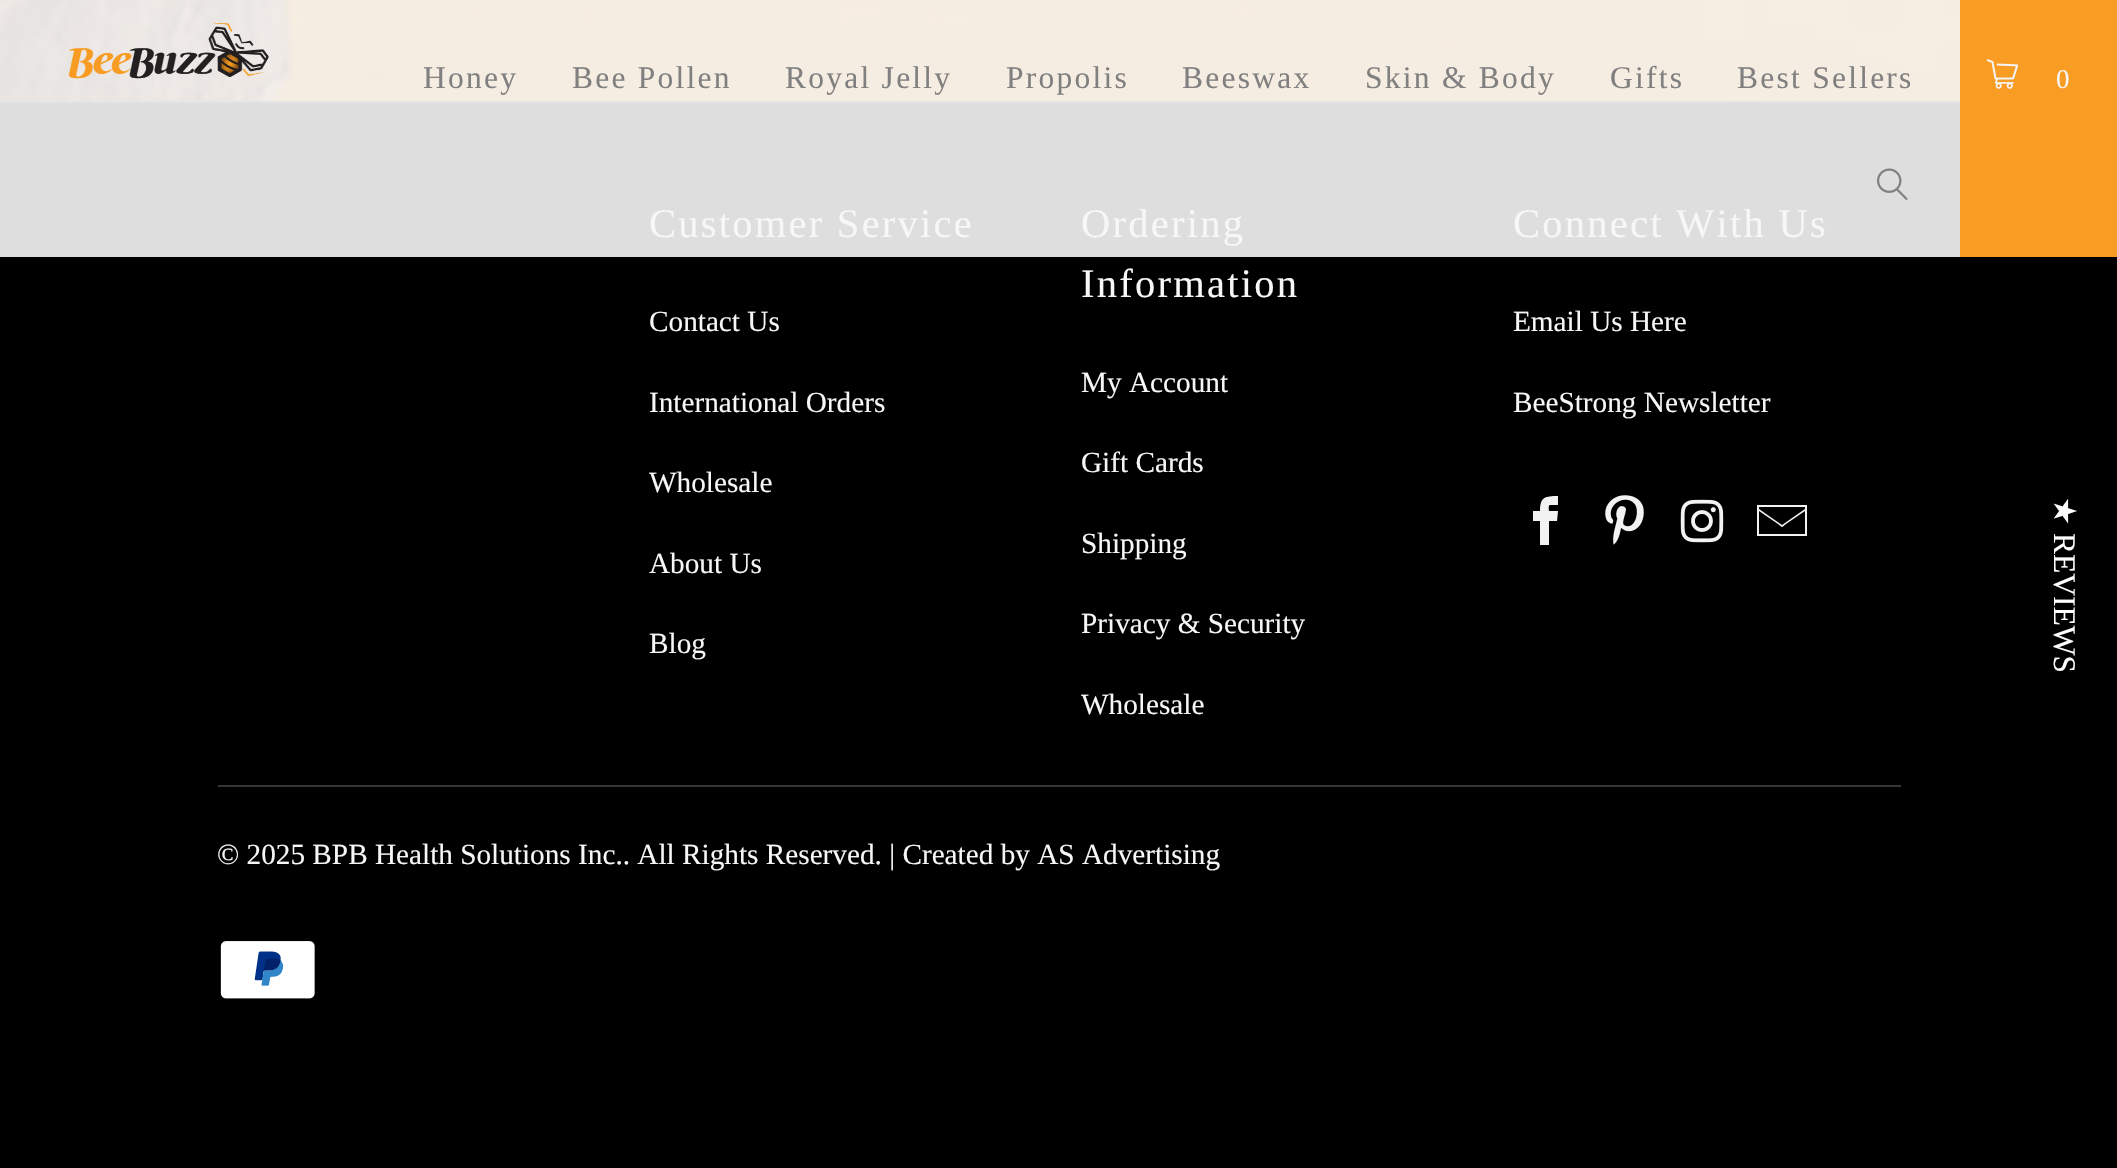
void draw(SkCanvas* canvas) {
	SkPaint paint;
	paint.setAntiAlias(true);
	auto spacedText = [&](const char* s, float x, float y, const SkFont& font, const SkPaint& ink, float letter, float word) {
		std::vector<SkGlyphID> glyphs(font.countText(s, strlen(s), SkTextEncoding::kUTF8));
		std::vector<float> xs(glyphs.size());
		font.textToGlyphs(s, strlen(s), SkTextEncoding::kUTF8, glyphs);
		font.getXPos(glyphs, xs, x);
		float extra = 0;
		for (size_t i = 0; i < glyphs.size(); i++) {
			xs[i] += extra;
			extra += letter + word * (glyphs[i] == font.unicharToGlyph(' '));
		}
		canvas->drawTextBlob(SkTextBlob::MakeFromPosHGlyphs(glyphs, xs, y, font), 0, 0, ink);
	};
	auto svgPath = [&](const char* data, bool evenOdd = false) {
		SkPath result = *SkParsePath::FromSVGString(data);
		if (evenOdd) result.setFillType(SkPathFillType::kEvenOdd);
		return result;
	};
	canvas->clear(0xffffffff);
	canvas->drawImageRect(SkImages::DeferredFromEncodedData(SkData::MakeFromFileName("img1.png")), SkRect::MakeXYWH(0, 0, 1960, 101), SkSamplingOptions());
	canvas->drawImageRect(SkImages::DeferredFromEncodedData(SkData::MakeFromFileName("img2.png")), SkRect::MakeXYWH(68, 22, 201, 57), SkSamplingOptions());
	SkFont f1(fontMgr->matchFamilyStyle("Liberation Serif", SkFontStyle::Normal()), 31.5);
	f1.setSubpixel(true);
	paint.setColor(0xff808080);
	spacedText("Honey", 423, 88, f1, paint, 2.25, 0);
	spacedText("Bee Pollen", 572, 88, f1, paint, 2.25, 0);
	spacedText("Royal Jelly", 785, 88, f1, paint, 2.25, 0);
	spacedText("Propolis", 1006, 88, f1, paint, 2.25, 0);
	spacedText("Beeswax", 1182, 88, f1, paint, 2.25, 0);
	spacedText("Skin & Body", 1365, 88, f1, paint, 2.25, 0);
	spacedText("Gifts", 1610, 88, f1, paint, 2.25, 0);
	spacedText("Best Sellers", 1737, 88, f1, paint, 2.25, 0);
	paint.setColor(0xffdedede);
	canvas->drawRect(SkRect::MakeXYWH(0, 103, 1960, 154), paint);
	canvas->drawImageRect(SkImages::DeferredFromEncodedData(SkData::MakeFromFileName("img3.png")), SkRect::MakeXYWH(1877, 168, 31, 32), SkSamplingOptions());
	paint.setColor(0xfff89c24);
	canvas->drawRect(SkRect::MakeXYWH(1960, 0, 157, 257), paint);
	canvas->drawImageRect(SkImages::DeferredFromEncodedData(SkData::MakeFromFileName("img4.png")), SkRect::MakeXYWH(1986, 59, 33, 30), SkSamplingOptions());
	SkFont f2(fontMgr->matchFamilyStyle("Liberation Serif", SkFontStyle::Normal()), 27);
	f2.setSubpixel(true);
	paint.setColor(0xfff7f7f7);
	spacedText("0", 2056, 88, f2, paint, 2.25, 0);
	paint.setColor(0xff000000);
	canvas->drawRect(SkRect::MakeXYWH(0, 257, 2117, 911), paint);
	paint.setColor(0xffe4e4e4);
	canvas->drawRect(SkRect::MakeXYWH(0, 101, 1960, 2), paint);
	SkFont f3(fontMgr->matchFamilyStyle("Liberation Serif", SkFontStyle::Normal()), 40.5);
	f3.setSubpixel(true);
	paint.setColor(0xfff7f7f7);
	spacedText("Customer Service", 649, 237, f3, paint, 2.25, 0);
	SkFont f4(fontMgr->matchFamilyStyle("Liberation Serif", SkFontStyle::Normal()), 29.25);
	f4.setSubpixel(true);
	canvas->drawString("Contact Us", 649, 331, f4, paint);
	canvas->drawString("International Orders", 649, 412, f4, paint);
	canvas->drawString("Wholesale", 649, 492, f4, paint);
	canvas->drawString("About Us", 649, 573, f4, paint);
	canvas->drawString("Blog", 649, 653, f4, paint);
	spacedText("Ordering", 1081, 237, f3, paint, 2.25, 0);
	spacedText("Information", 1081, 297, f3, paint, 2.25, 0);
	canvas->drawString("My Account", 1081, 392, f4, paint);
	canvas->drawString("Gift Cards", 1081, 472, f4, paint);
	canvas->drawString("Shipping", 1081, 553, f4, paint);
	canvas->drawString("Privacy & Security", 1081, 633, f4, paint);
	canvas->drawString("Wholesale", 1081, 714, f4, paint);
	spacedText("Connect With Us", 1513, 237, f3, paint, 2.25, 0);
	canvas->drawString("Email Us Here", 1513, 331, f4, paint);
	canvas->drawString("BeeStrong Newsletter", 1513, 412, f4, paint);
	paint.setColor(0xfff2f2f2);
	canvas->drawPath(svgPath("M1550 505H1558V496C1545 496 1540 497 1540 511H1533V521H1540V545H1549V521H1557L1558 511H1549C1549 510 1548 505 1550 505Z"), paint);
	canvas->drawImageRect(SkImages::DeferredFromEncodedData(SkData::MakeFromFileName("img5.png")), SkRect::MakeXYWH(1605, 495, 39, 50), SkSamplingOptions());
	canvas->drawImageRect(SkImages::DeferredFromEncodedData(SkData::MakeFromFileName("img6.png")), SkRect::MakeXYWH(1680, 499, 44, 44), SkSamplingOptions());
	canvas->drawPath(svgPath("M1757 505V536H1807V505ZM1805 507V509L1782 525L1759 509V507ZM1759 534V511L1778 524C1783 528 1781 528 1786 524L1805 511V534Z"), paint);
	paint.setColor(0xff363636);
	canvas->drawRect(SkRect::MakeXYWH(218, 785, 1683, 2), paint);
	paint.setColor(0xfff7f7f7);
	canvas->drawString("© 2025 BPB Health Solutions Inc.. All Rights Reserved. | Created by AS Advertising", 217, 864, f4, paint);
	canvas->drawImageRect(SkImages::DeferredFromEncodedData(SkData::MakeFromFileName("img7.png")), SkRect::MakeXYWH(220, 941, 95, 58), SkSamplingOptions());
	SkFont f5(fontMgr->matchFamilyStyle("DejaVu Sans", SkFontStyle::Normal()), 31.5);
	f5.setSubpixel(true);
	paint.setColor(0xfffefefe);
	canvas->save();
	canvas->rotate(90, 2054, 497);
	canvas->drawString("★", 2054, 497, f5, paint);
	canvas->restore();
	canvas->save();
	canvas->rotate(90, 2054, 533);
	canvas->drawString("REVIEWS", 2054, 533, f1, paint);
	canvas->restore();
}
